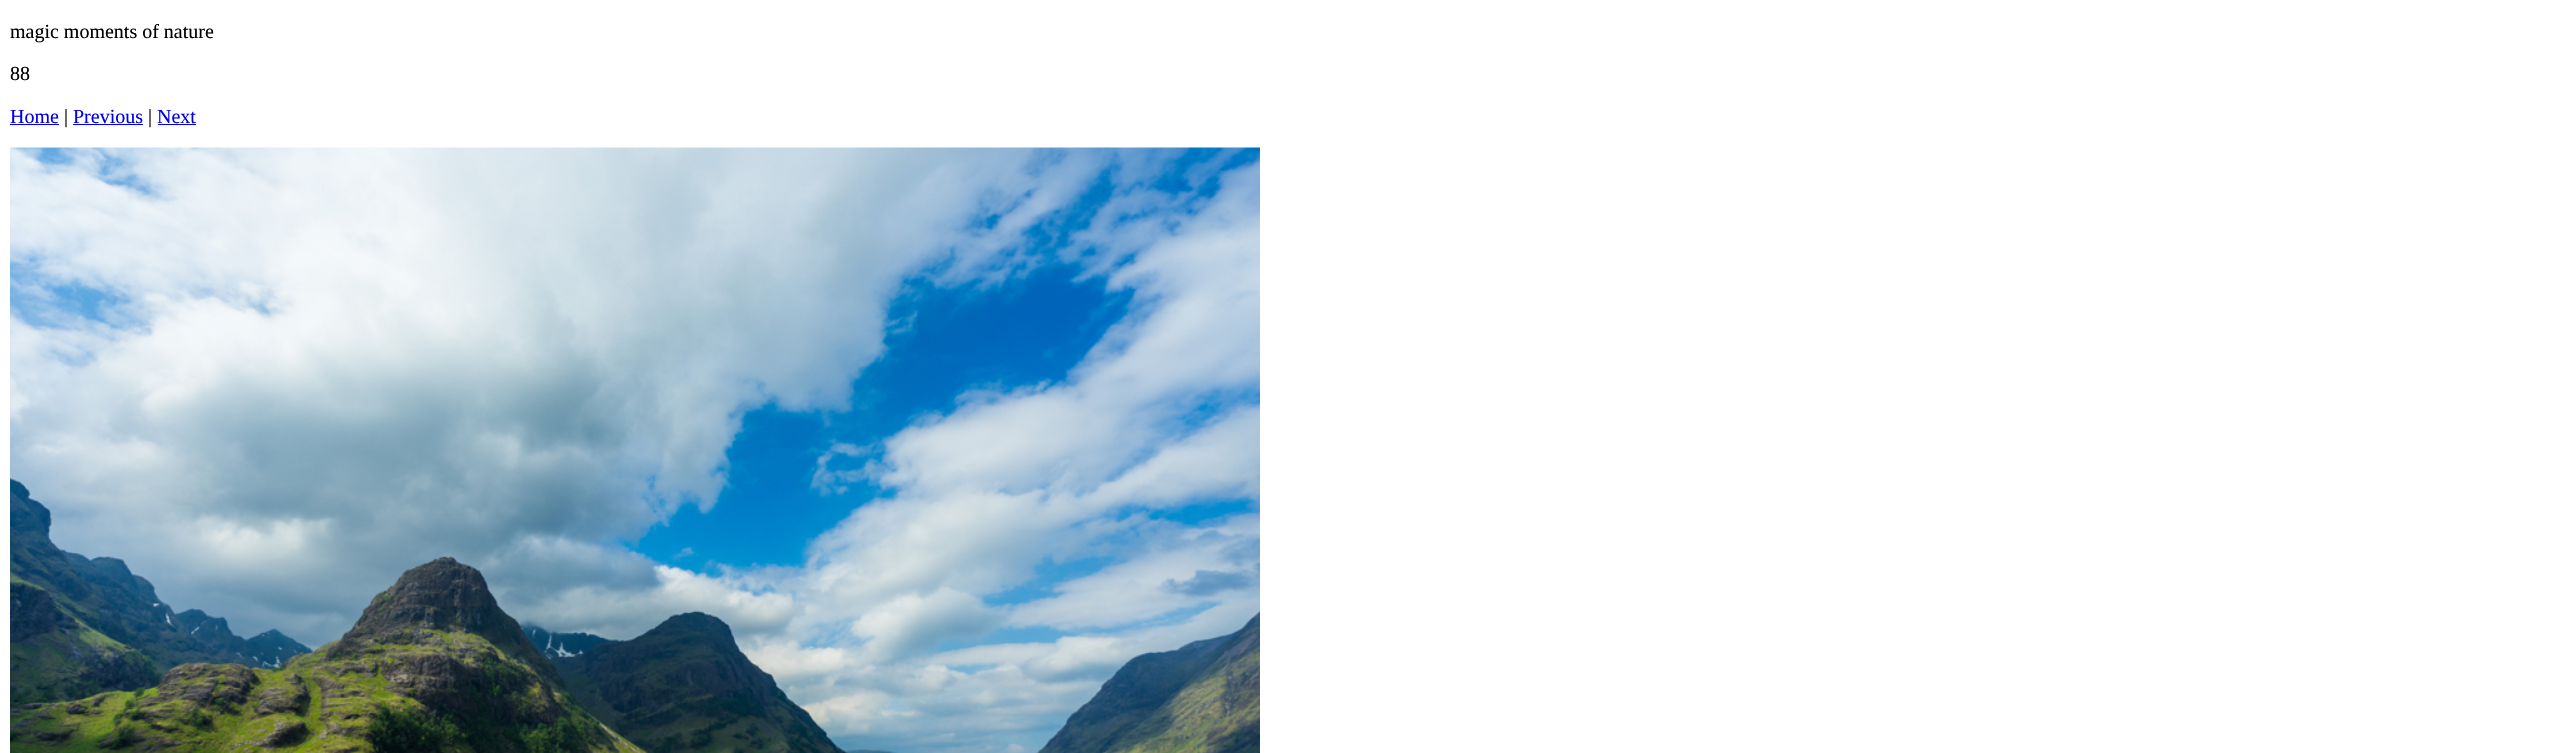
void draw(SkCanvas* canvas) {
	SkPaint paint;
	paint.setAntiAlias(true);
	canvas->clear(0xffffffff);
	SkFont f1(fontMgr->matchFamilyStyle("Liberation Serif", SkFontStyle::Normal()), 20);
	f1.setSubpixel(true);
	paint.setColor(0xff000000);
	canvas->drawString("magic moments of nature", 10, 38, f1, paint);
	canvas->drawString("88", 10, 80, f1, paint);
	paint.setColor(0xff0000ee);
	canvas->drawString("Home", 10, 123, f1, paint);
	canvas->drawRect(SkRect::MakeXYWH(10, 124, 49, 1), paint);
	paint.setColor(0xff000000);
	canvas->drawString("|", 64, 123, f1, paint);
	paint.setColor(0xff0000ee);
	canvas->drawString("Previous", 73, 123, f1, paint);
	canvas->drawRect(SkRect::MakeXYWH(73, 124, 70, 1), paint);
	paint.setColor(0xff000000);
	canvas->drawString("|", 148, 123, f1, paint);
	paint.setColor(0xff0000ee);
	canvas->drawString("Next", 157, 123, f1, paint);
	canvas->drawRect(SkRect::MakeXYWH(158, 124, 38, 1), paint);
	canvas->drawImageRect(SkImages::DeferredFromEncodedData(SkData::MakeFromFileName("img1.png")), SkRect::MakeXYWH(10, 147, 1250, 606), SkSamplingOptions());
}
